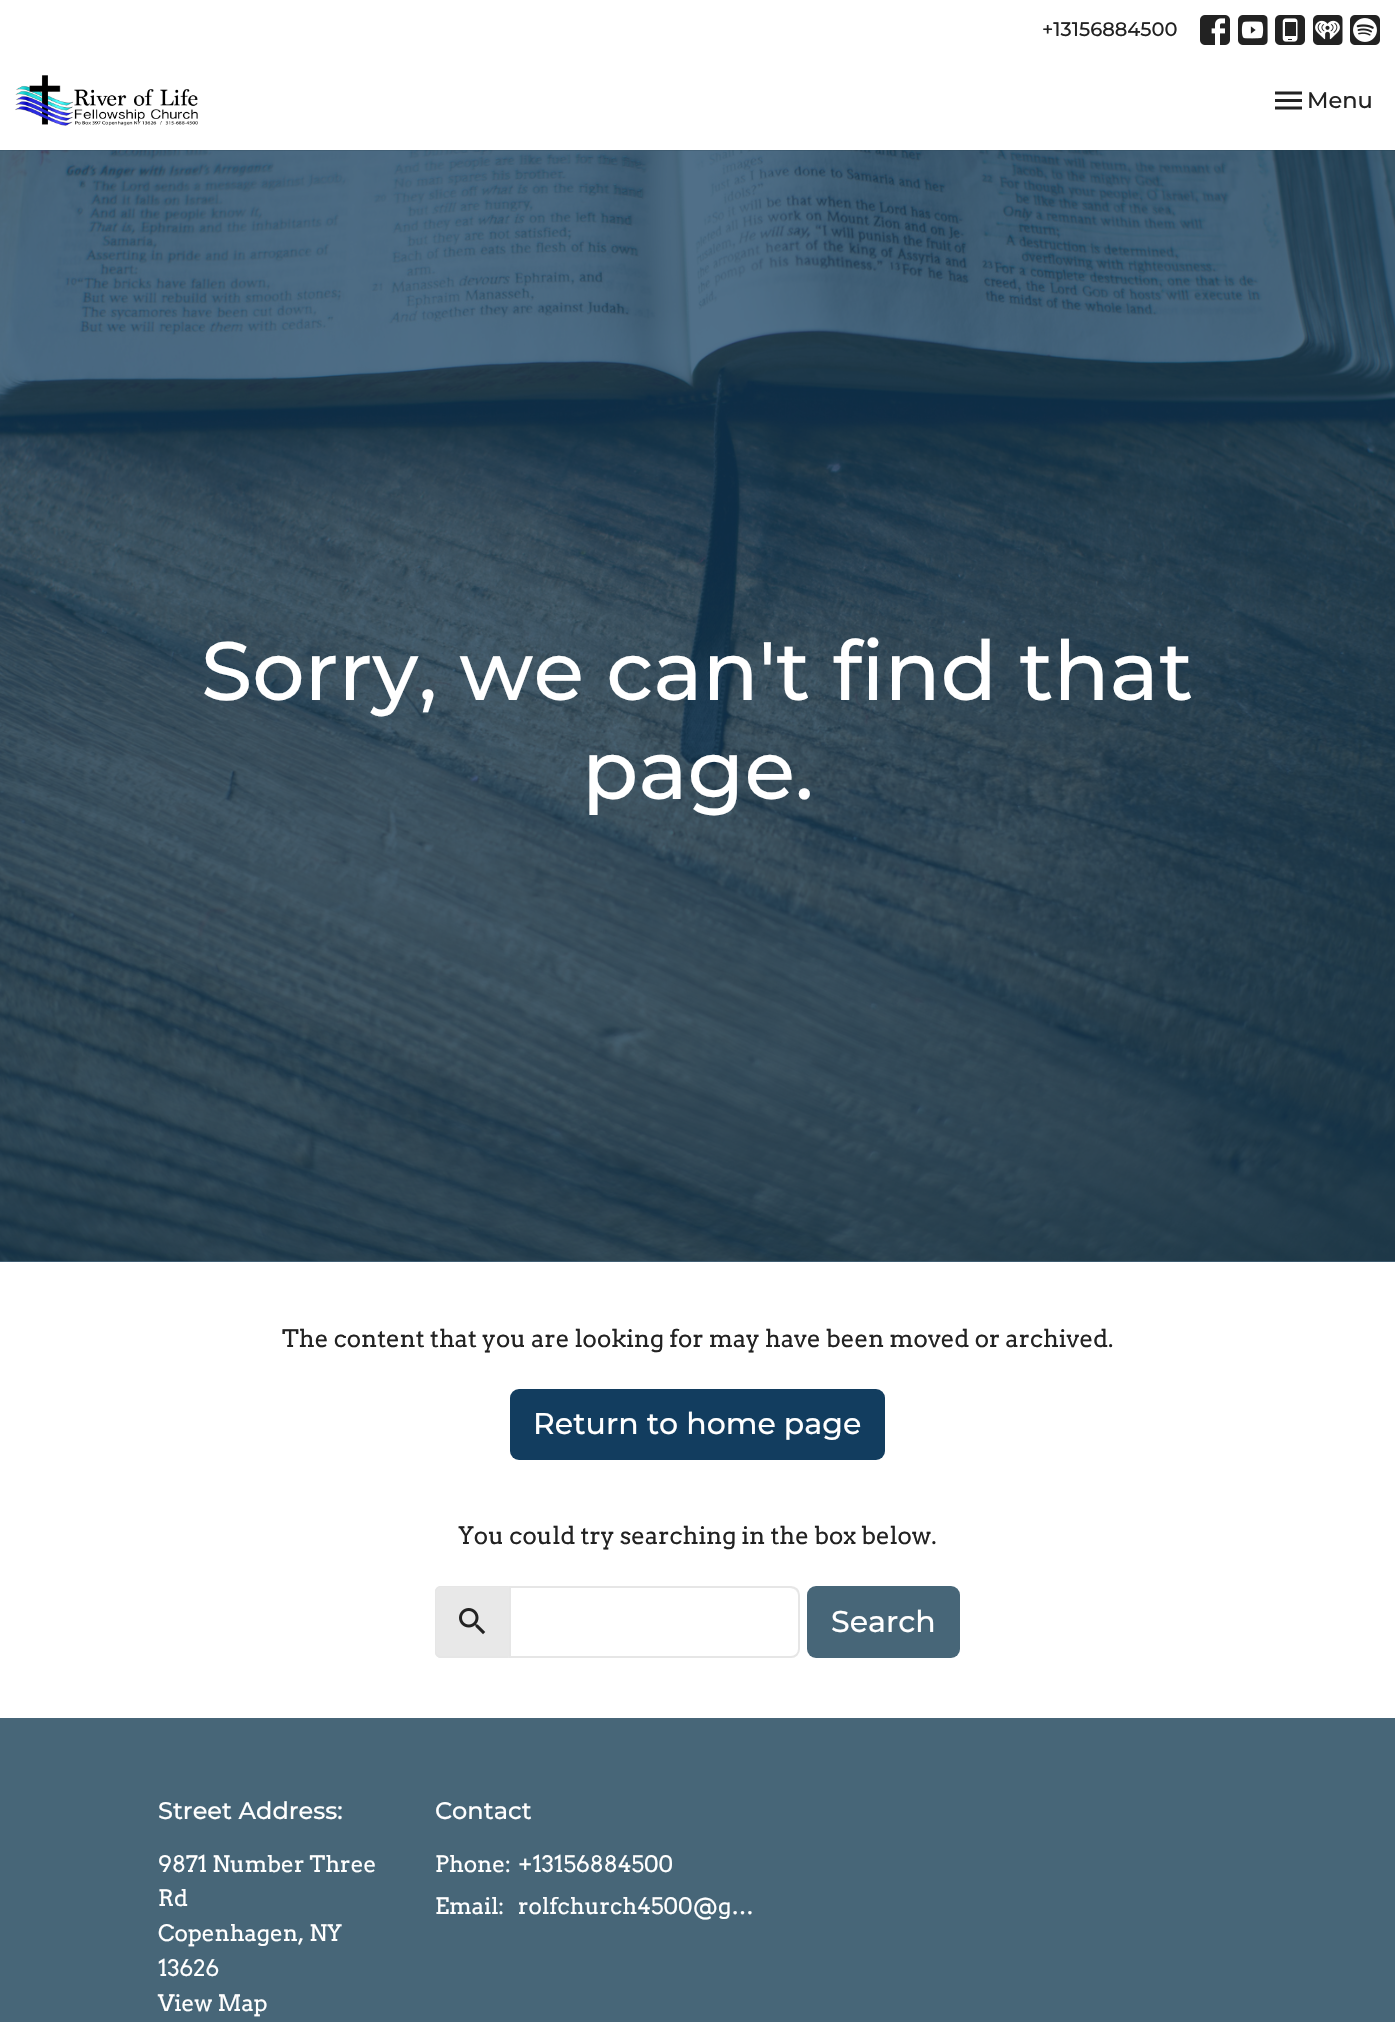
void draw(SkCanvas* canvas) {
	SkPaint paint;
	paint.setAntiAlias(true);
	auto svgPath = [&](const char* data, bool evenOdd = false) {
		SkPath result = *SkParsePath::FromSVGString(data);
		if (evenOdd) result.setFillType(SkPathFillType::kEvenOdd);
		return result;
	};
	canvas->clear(0xffffffff);
	paint.setColor(0xff52718a);
	canvas->drawRect(SkRect::MakeXYWH(0, 1261, 1395, 1), paint);
	SkFont f1(fontMgr->matchFamilyStyle("Montserrat", SkFontStyle(500, SkFontStyle::kNormal_Width, SkFontStyle::kUpright_Slant)), 19.5);
	f1.setSubpixel(true);
	paint.setColor(0xff222222);
	canvas->drawString("+13156884500", 1042, 36, f1, paint);
	canvas->drawImageRect(SkImages::DeferredFromEncodedData(SkData::MakeFromFileName("img1.png")), SkRect::MakeXYWH(1200, 15, 30, 30), SkSamplingOptions());
	canvas->drawImageRect(SkImages::DeferredFromEncodedData(SkData::MakeFromFileName("img2.png")), SkRect::MakeXYWH(1238, 15, 30, 30), SkSamplingOptions());
	canvas->drawImageRect(SkImages::DeferredFromEncodedData(SkData::MakeFromFileName("img3.png")), SkRect::MakeXYWH(1275, 15, 30, 30), SkSamplingOptions());
	canvas->drawImageRect(SkImages::DeferredFromEncodedData(SkData::MakeFromFileName("img4.png")), SkRect::MakeXYWH(1313, 15, 30, 30), SkSamplingOptions());
	canvas->drawImageRect(SkImages::DeferredFromEncodedData(SkData::MakeFromFileName("img5.png")), SkRect::MakeXYWH(1350, 15, 30, 30), SkSamplingOptions());
	canvas->drawImageRect(SkImages::DeferredFromEncodedData(SkData::MakeFromFileName("img6.png")), SkRect::MakeXYWH(15, 75, 183, 51), SkSamplingOptions());
	canvas->drawImageRect(SkImages::DeferredFromEncodedData(SkData::MakeFromFileName("img7.png")), SkRect::MakeXYWH(1275, 91, 27, 19), SkSamplingOptions());
	SkFont f2(fontMgr->matchFamilyStyle("Montserrat", SkFontStyle(500, SkFontStyle::kNormal_Width, SkFontStyle::kUpright_Slant)), 22.5);
	f2.setSubpixel(true);
	canvas->drawString("Menu", 1307, 108, f2, paint);
	canvas->drawImageRect(SkImages::DeferredFromEncodedData(SkData::MakeFromFileName("img8.png")), SkRect::MakeXYWH(0, 150, 1395, 1112), SkSamplingOptions());
	SkFont f3(fontMgr->matchFamilyStyle("Montserrat", SkFontStyle(500, SkFontStyle::kNormal_Width, SkFontStyle::kUpright_Slant)), 82.5);
	f3.setSubpixel(true);
	paint.setColor(0xffffffff);
	canvas->drawString("Sorry, we can't find that", 201, 700, f3, paint);
	canvas->drawString("page.", 582, 799, f3, paint);
	SkFont f4(fontMgr->matchFamilyStyle("Arvo", SkFontStyle::Normal()), 24);
	f4.setSubpixel(true);
	paint.setColor(0xff222222);
	canvas->drawString("The content that you are looking for may have been moved or archived.", 282, 1347, f4, paint);
	paint.setColor(0xff123d5f);
	canvas->drawRoundRect(SkRect::MakeXYWH(510, 1389, 375, 71), 9, 9, paint);
	SkFont f5(fontMgr->matchFamilyStyle("Montserrat", SkFontStyle(500, SkFontStyle::kNormal_Width, SkFontStyle::kUpright_Slant)), 30);
	f5.setSubpixel(true);
	paint.setColor(0xffffffff);
	canvas->drawString("Return to home page", 533, 1434, f5, paint);
	paint.setColor(0xff222222);
	canvas->drawString("You could try searching in the box below.", 458, 1544, f4, paint);
	paint.setColor(0xffe8e8e8);
	canvas->drawPath(svgPath("M441 1586H509V1658H441C437.5 1658 435 1655.5 435 1652V1592C435 1588.5 437.5 1586 441 1586Z"), paint);
	paint.setColor(0xffe6e6e6);
	canvas->drawPath(svgPath("M441 1586H508V1658H441C438 1658 435 1655 435 1652V1592C435 1588 438 1586 441 1586ZM441 1587H508V1656H441C439 1656 436 1654 436 1652V1592C436 1589 439 1587 441 1587Z", true), paint);
	canvas->drawImageRect(SkImages::DeferredFromEncodedData(SkData::MakeFromFileName("img9.png")), SkRect::MakeXYWH(459, 1608, 27, 27), SkSamplingOptions());
	paint.setColor(0xffececec);
	canvas->drawPath(svgPath("M510 1588H790C795 1588 798 1592 798 1596C798 1591 795 1587 790 1587H510Z"), paint);
	paint.setStroke(true);
	paint.setStrokeWidth(2);
	paint.setColor(0xffe6e6e6);
	canvas->drawPath(svgPath("M510 1587H791C795.5 1587 799 1590.5 799 1595V1649C799 1653.5 795.5 1657 791 1657H510Z"), paint);
	paint.setStroke(false);
	paint.setColor(0xff476678);
	canvas->drawRoundRect(SkRect::MakeXYWH(807, 1586, 153, 72), 9, 9, paint);
	paint.setColor(0xffffffff);
	canvas->drawString("Search", 831, 1632, f5, paint);
	paint.setColor(0xff476678);
	canvas->drawRect(SkRect::MakeXYWH(0, 1718, 1395, 304), paint);
	SkFont f6(fontMgr->matchFamilyStyle("Montserrat", SkFontStyle(500, SkFontStyle::kNormal_Width, SkFontStyle::kUpright_Slant)), 24);
	f6.setSubpixel(true);
	paint.setColor(0xffffffff);
	canvas->drawString("Street Address:", 158, 1819, f6, paint);
	SkFont f7(fontMgr->matchFamilyStyle("Arvo", SkFontStyle::Normal()), 22.5);
	f7.setSubpixel(true);
	canvas->drawString("9871 Number Three", 158, 1872, f7, paint);
	canvas->drawString("Rd", 158, 1906, f7, paint);
	canvas->drawString("Copenhagen, NY", 158, 1941, f7, paint);
	canvas->drawString("13626", 158, 1976, f7, paint);
	canvas->drawString("View Map", 158, 2011, f7, paint);
	canvas->drawString("Contact", 435, 1819, f6, paint);
	canvas->drawString("Phone:", 435, 1872, f7, paint);
	canvas->drawString("+13156884500", 518, 1872, f7, paint);
	canvas->drawString("Email:", 435, 1914, f7, paint);
	canvas->drawString("rolfchurch4500@g…", 518, 1914, f7, paint);
}
